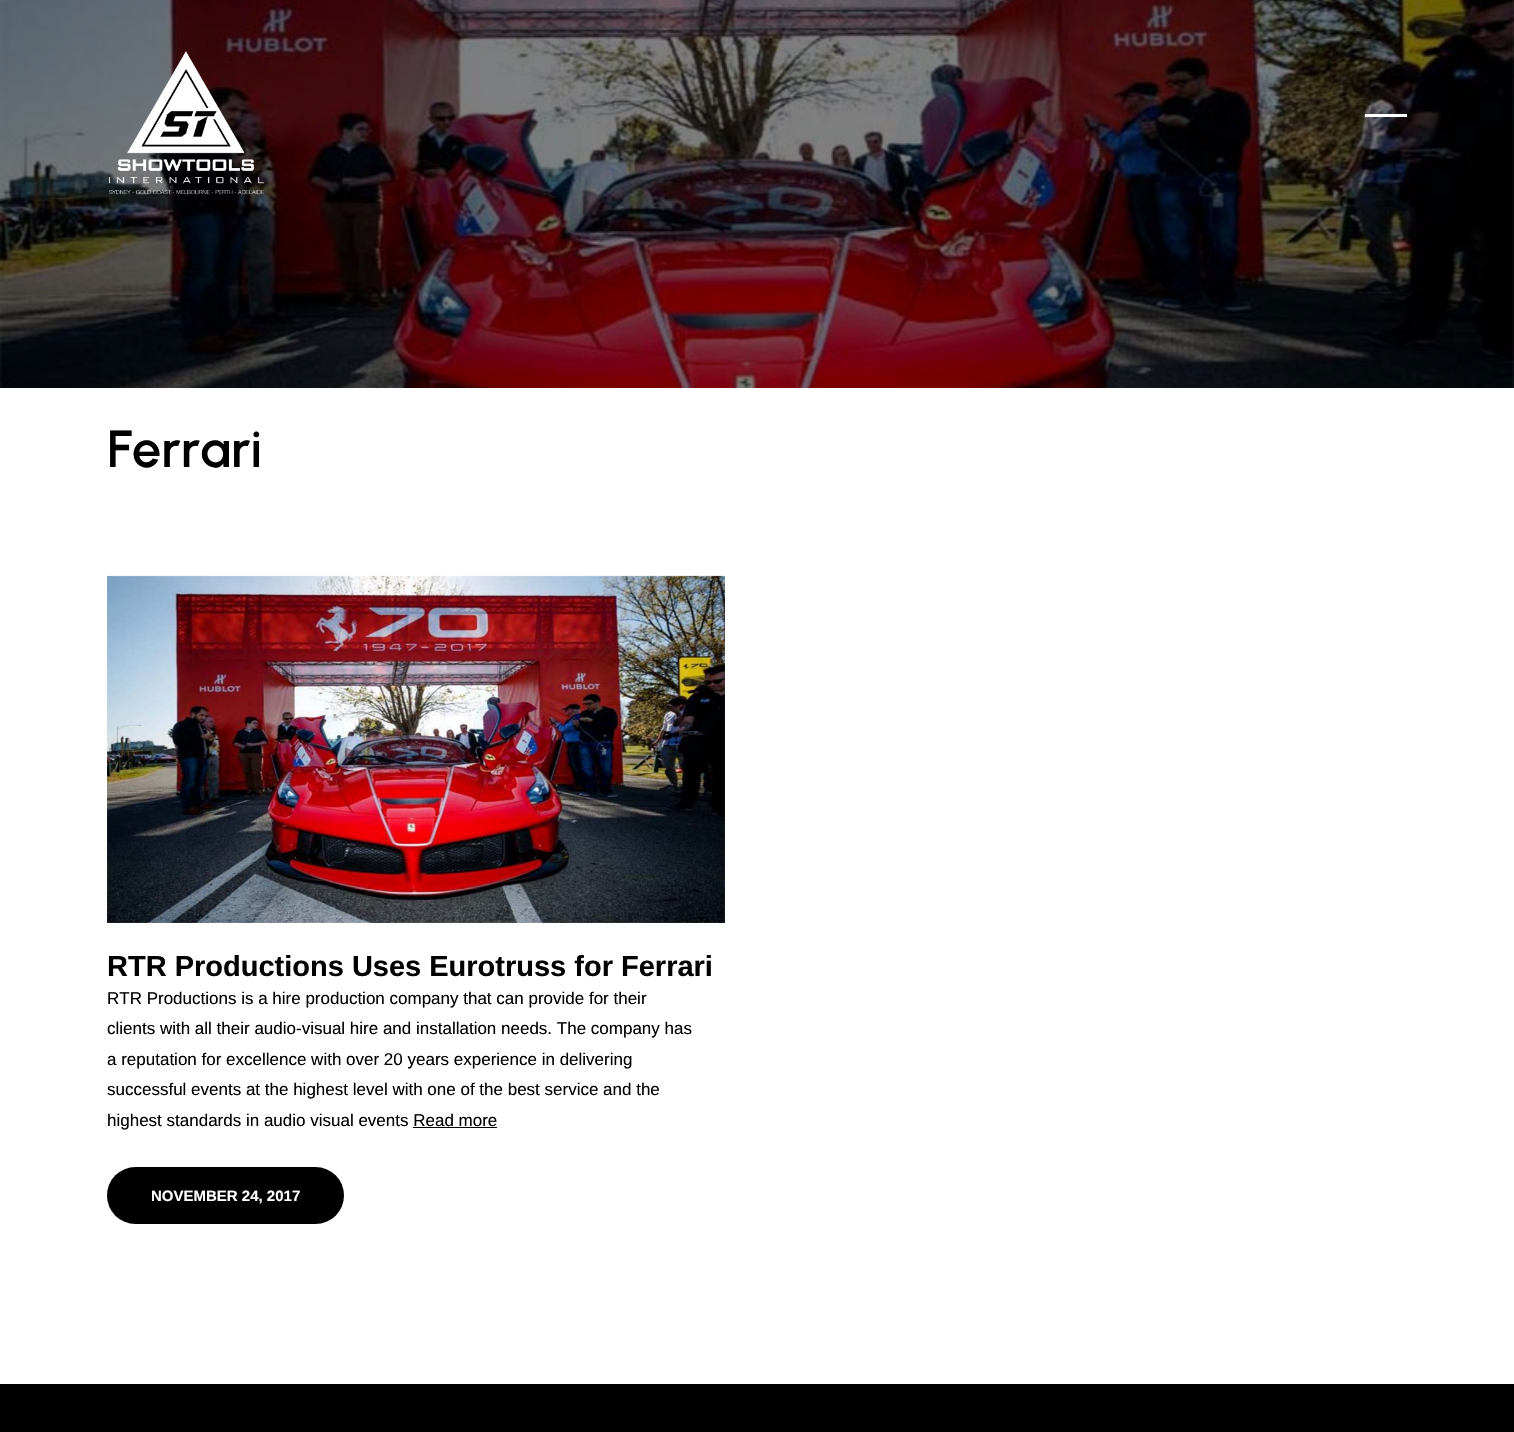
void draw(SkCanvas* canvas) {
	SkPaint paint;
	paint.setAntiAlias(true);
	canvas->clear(0xffffffff);
	canvas->drawImageRect(SkImages::DeferredFromEncodedData(SkData::MakeFromFileName("img1.png")), SkRect::MakeXYWH(0, 0, 1514, 388), SkSamplingOptions());
	canvas->drawImageRect(SkImages::DeferredFromEncodedData(SkData::MakeFromFileName("img2.png")), SkRect::MakeXYWH(109, 51, 155, 144), SkSamplingOptions());
	paint.setColor(0xffffffff);
	canvas->drawRect(SkRect::MakeXYWH(1365, 114, 42, 3), paint);
	SkFont f1(fontMgr->matchFamilyStyle("Urbanist", SkFontStyle(600, SkFontStyle::kNormal_Width, SkFontStyle::kUpright_Slant)), 52);
	f1.setSubpixel(true);
	paint.setColor(0xff000000);
	canvas->drawString("Ferrari", 107, 467, f1, paint);
	canvas->drawImageRect(SkImages::DeferredFromEncodedData(SkData::MakeFromFileName("img3.png")), SkRect::MakeXYWH(107, 575, 618, 348), SkSamplingOptions());
	SkFont f2(fontMgr->matchFamilyStyle("Liberation Sans", SkFontStyle::Bold()), 29);
	f2.setSubpixel(true);
	canvas->drawString("RTR Productions Uses Eurotruss for Ferrari", 107, 976, f2, paint);
	SkFont f3(fontMgr->matchFamilyStyle("Liberation Sans", SkFontStyle::Normal()), 17);
	f3.setSubpixel(true);
	canvas->drawString("RTR Productions is a hire production company that can provide for their", 107, 1004, f3, paint);
	canvas->drawString("clients with all their audio-visual hire and installation needs. The company has", 107, 1034, f3, paint);
	canvas->drawString("a reputation for excellence with over 20 years experience in delivering", 107, 1065, f3, paint);
	canvas->drawString("successful events at the highest level with one of the best service and the", 107, 1095, f3, paint);
	canvas->drawString("highest standards in audio visual events Read more", 107, 1126, f3, paint);
	canvas->drawRect(SkRect::MakeXYWH(413, 1127, 84, 1), paint);
	canvas->drawRoundRect(SkRect::MakeXYWH(107, 1167, 237, 57), 28.5, 28.5, paint);
	SkFont f4(fontMgr->matchFamilyStyle("Liberation Sans", SkFontStyle::Bold()), 15);
	f4.setSubpixel(true);
	paint.setColor(0xffffffff);
	canvas->drawString("NOVEMBER 24, 2017", 151, 1201, f4, paint);
	paint.setColor(0xff000000);
	canvas->drawRect(SkRect::MakeXYWH(0, 1384, 1514, 48), paint);
}
